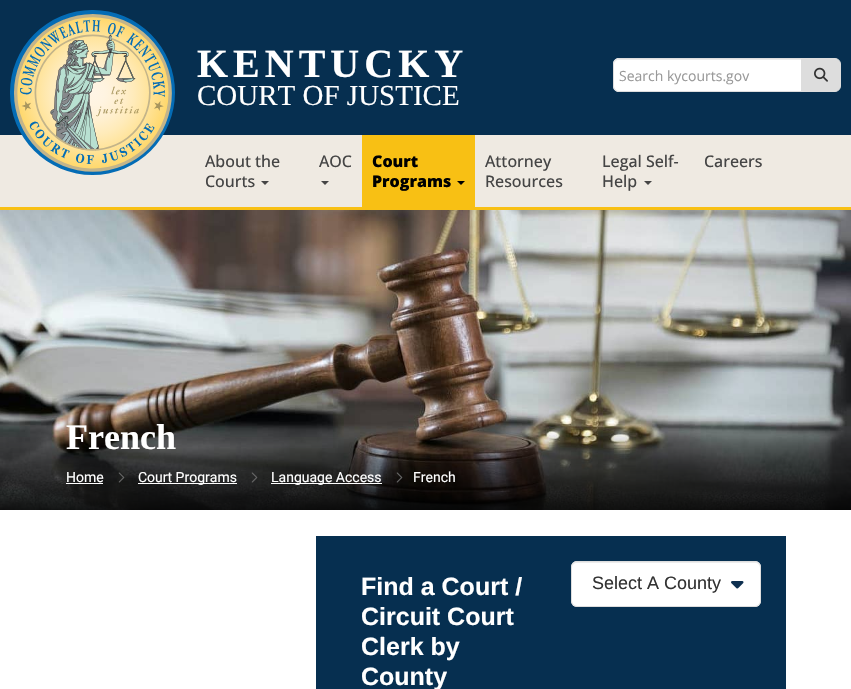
void draw(SkCanvas* canvas) {
	SkPaint paint;
	paint.setAntiAlias(true);
	auto spacedText = [&](const char* s, float x, float y, const SkFont& font, const SkPaint& ink, float letter, float word) {
		std::vector<SkGlyphID> glyphs(font.countText(s, strlen(s), SkTextEncoding::kUTF8));
		std::vector<float> xs(glyphs.size());
		font.textToGlyphs(s, strlen(s), SkTextEncoding::kUTF8, glyphs);
		font.getXPos(glyphs, xs, x);
		float extra = 0;
		for (size_t i = 0; i < glyphs.size(); i++) {
			xs[i] += extra;
			extra += letter + word * (glyphs[i] == font.unicharToGlyph(' '));
		}
		canvas->drawTextBlob(SkTextBlob::MakeFromPosHGlyphs(glyphs, xs, y, font), 0, 0, ink);
	};
	auto svgPath = [&](const char* data, bool evenOdd = false) {
		SkPath result = *SkParsePath::FromSVGString(data);
		if (evenOdd) result.setFillType(SkPathFillType::kEvenOdd);
		return result;
	};
	canvas->clear(0xffffffff);
	paint.setColor(0xff062f50);
	canvas->drawRect(SkRect::MakeXYWH(0, 0, 851, 135), paint);
	paint.setColor(0xfff8c014);
	canvas->drawRect(SkRect::MakeXYWH(0, 207, 851, 3), paint);
	paint.setColor(0xffefeae2);
	canvas->drawRect(SkRect::MakeXYWH(0, 135, 851, 72), paint);
	canvas->drawImageRect(SkImages::DeferredFromEncodedData(SkData::MakeFromFileName("img1.png")), SkRect::MakeXYWH(10, 10, 165, 165), SkSamplingOptions());
	SkFont f1(fontMgr->matchFamilyStyle("Liberation Serif", SkFontStyle::Bold()), 40);
	f1.setSubpixel(true);
	paint.setColor(0xffffffff);
	spacedText("KENTUCKY", 197, 77, f1, paint, 5, 0);
	SkFont f2(fontMgr->matchFamilyStyle("Liberation Serif", SkFontStyle::Normal()), 29);
	f2.setSubpixel(true);
	canvas->drawString("COURT OF JUSTICE", 197, 105, f2, paint);
	canvas->drawPath(svgPath("M619 58H802V92H619C615.5 92 613 89.5 613 86V64C613 60.5 615.5 58 619 58Z"), paint);
	paint.setColor(0xffececec);
	canvas->drawPath(svgPath("M619 60H801V59H619C616 59 614 62 614 65C614 62 616 60 619 60Z"), paint);
	paint.setStroke(true);
	paint.setStrokeWidth(1);
	paint.setColor(0xffdddddd);
	canvas->drawPath(svgPath("M619 58.5H801.5V91.5H619C616 91.5 613.5 89 613.5 86V64C613.5 61 616 58.5 619 58.5Z"), paint);
	SkFont f3(fontMgr->matchFamilyStyle("Open Sans", SkFontStyle::Normal()), 14);
	f3.setSubpixel(true);
	paint.setStroke(false);
	paint.setColor(0xff999999);
	canvas->drawString("Search kycourts.gov", 619, 81, f3, paint);
	paint.setColor(0xffdddddd);
	canvas->drawPath(svgPath("M801.5 58.5H835C838 58.5 840.5 61 840.5 64V86C840.5 89 838 91.5 835 91.5H801.5Z"), paint);
	paint.setStroke(true);
	canvas->drawPath(svgPath("M801.5 58.5H835C838 58.5 840.5 61 840.5 64V86C840.5 89 838 91.5 835 91.5H801.5Z"), paint);
	canvas->drawImageRect(SkImages::DeferredFromEncodedData(SkData::MakeFromFileName("img2.png")), SkRect::MakeXYWH(814, 67, 14, 15), SkSamplingOptions());
	SkFont f4(fontMgr->matchFamilyStyle("Open Sans", SkFontStyle(500, SkFontStyle::kNormal_Width, SkFontStyle::kUpright_Slant)), 16);
	f4.setSubpixel(true);
	paint.setStroke(false);
	paint.setColor(0xff454545);
	canvas->drawString("About the", 205, 167, f4, paint);
	canvas->drawString("Courts", 205, 187, f4, paint);
	canvas->drawPath(svgPath("M261 181H269L265 185Z"), paint);
	canvas->drawString("AOC", 319, 167, f4, paint);
	canvas->drawPath(svgPath("M321 181H329L325 185Z"), paint);
	paint.setColor(0xfff8c014);
	canvas->drawRect(SkRect::MakeXYWH(362, 135, 113, 72), paint);
	SkFont f5(fontMgr->matchFamilyStyle("Open Sans", SkFontStyle(800, SkFontStyle::kNormal_Width, SkFontStyle::kUpright_Slant)), 16);
	f5.setSubpixel(true);
	paint.setColor(0xff000000);
	canvas->drawString("Court", 372, 167, f5, paint);
	canvas->drawString("Programs", 372, 187, f5, paint);
	canvas->drawPath(svgPath("M457 181H465L461 185Z"), paint);
	paint.setColor(0xff454545);
	canvas->drawString("Attorney", 485, 167, f4, paint);
	canvas->drawString("Resources", 485, 187, f4, paint);
	canvas->drawString("Legal Self-", 602, 167, f4, paint);
	canvas->drawString("Help", 602, 187, f4, paint);
	canvas->drawPath(svgPath("M644 181H652L648 185Z"), paint);
	canvas->drawString("Careers", 704, 167, f4, paint);
	canvas->drawImageRect(SkImages::DeferredFromEncodedData(SkData::MakeFromFileName("img3.png")), SkRect::MakeXYWH(0, 210, 851, 300), SkSamplingOptions());
	SkFont f6(fontMgr->matchFamilyStyle("Liberation Serif", SkFontStyle::Bold()), 36);
	f6.setSubpixel(true);
	paint.setColor(0xffffffff);
	canvas->drawString("French", 66, 449, f6, paint);
	SkFont f7(fontMgr->matchFamilyStyle("Roboto", SkFontStyle::Normal()), 14);
	f7.setSubpixel(true);
	canvas->drawString("Home", 66, 482, f7, paint);
	canvas->drawRect(SkRect::MakeXYWH(66, 483, 37, 1), paint);
	canvas->drawImageRect(SkImages::DeferredFromEncodedData(SkData::MakeFromFileName("img4.png")), SkRect::MakeXYWH(118, 472, 7, 11), SkSamplingOptions());
	canvas->drawRect(SkRect::MakeXYWH(138, 483, 99, 1), paint);
	canvas->drawString("Court Programs", 138, 482, f7, paint);
	canvas->drawImageRect(SkImages::DeferredFromEncodedData(SkData::MakeFromFileName("img5.png")), SkRect::MakeXYWH(251, 472, 7, 11), SkSamplingOptions());
	canvas->drawRect(SkRect::MakeXYWH(271, 483, 111, 1), paint);
	canvas->drawString("Language Access", 271, 482, f7, paint);
	canvas->drawImageRect(SkImages::DeferredFromEncodedData(SkData::MakeFromFileName("img6.png")), SkRect::MakeXYWH(396, 472, 7, 11), SkSamplingOptions());
	canvas->drawString("French", 413, 482, f7, paint);
	paint.setColor(0xff062f50);
	canvas->drawRect(SkRect::MakeXYWH(316, 536, 470, 153), paint);
	SkFont f8(fontMgr->matchFamilyStyle("Liberation Sans", SkFontStyle::Bold()), 25);
	f8.setSubpixel(true);
	paint.setColor(0xffffffff);
	canvas->drawString("Find a Court /", 361, 595, f8, paint);
	canvas->drawString("Circuit Court", 361, 625, f8, paint);
	canvas->drawString("Clerk by", 361, 655, f8, paint);
	canvas->drawString("County", 361, 685, f8, paint);
	canvas->drawRoundRect(SkRect::MakeXYWH(571, 561, 190, 46), 6, 6, paint);
	paint.setColor(0xffececec);
	canvas->drawPath(svgPath("M577 563H755C758 563 760 565 760 568C760 565 759 563 756 562H576C573 563 572 565 572 568C572 565 574 563 577 563Z"), paint);
	paint.setStroke(true);
	paint.setColor(0xffdddddd);
	canvas->drawRoundRect(SkRect::MakeXYWH(571.5, 561.5, 189, 45), 5.5, 5.5, paint);
	SkFont f9(fontMgr->matchFamilyStyle("Liberation Sans", SkFontStyle::Normal()), 18);
	f9.setSubpixel(true);
	paint.setStroke(false);
	paint.setColor(0xff333333);
	canvas->drawString("Select A County", 592, 589, f9, paint);
	canvas->drawImageRect(SkImages::DeferredFromEncodedData(SkData::MakeFromFileName("img7.png")), SkRect::MakeXYWH(731, 581, 13, 8), SkSamplingOptions());
}
